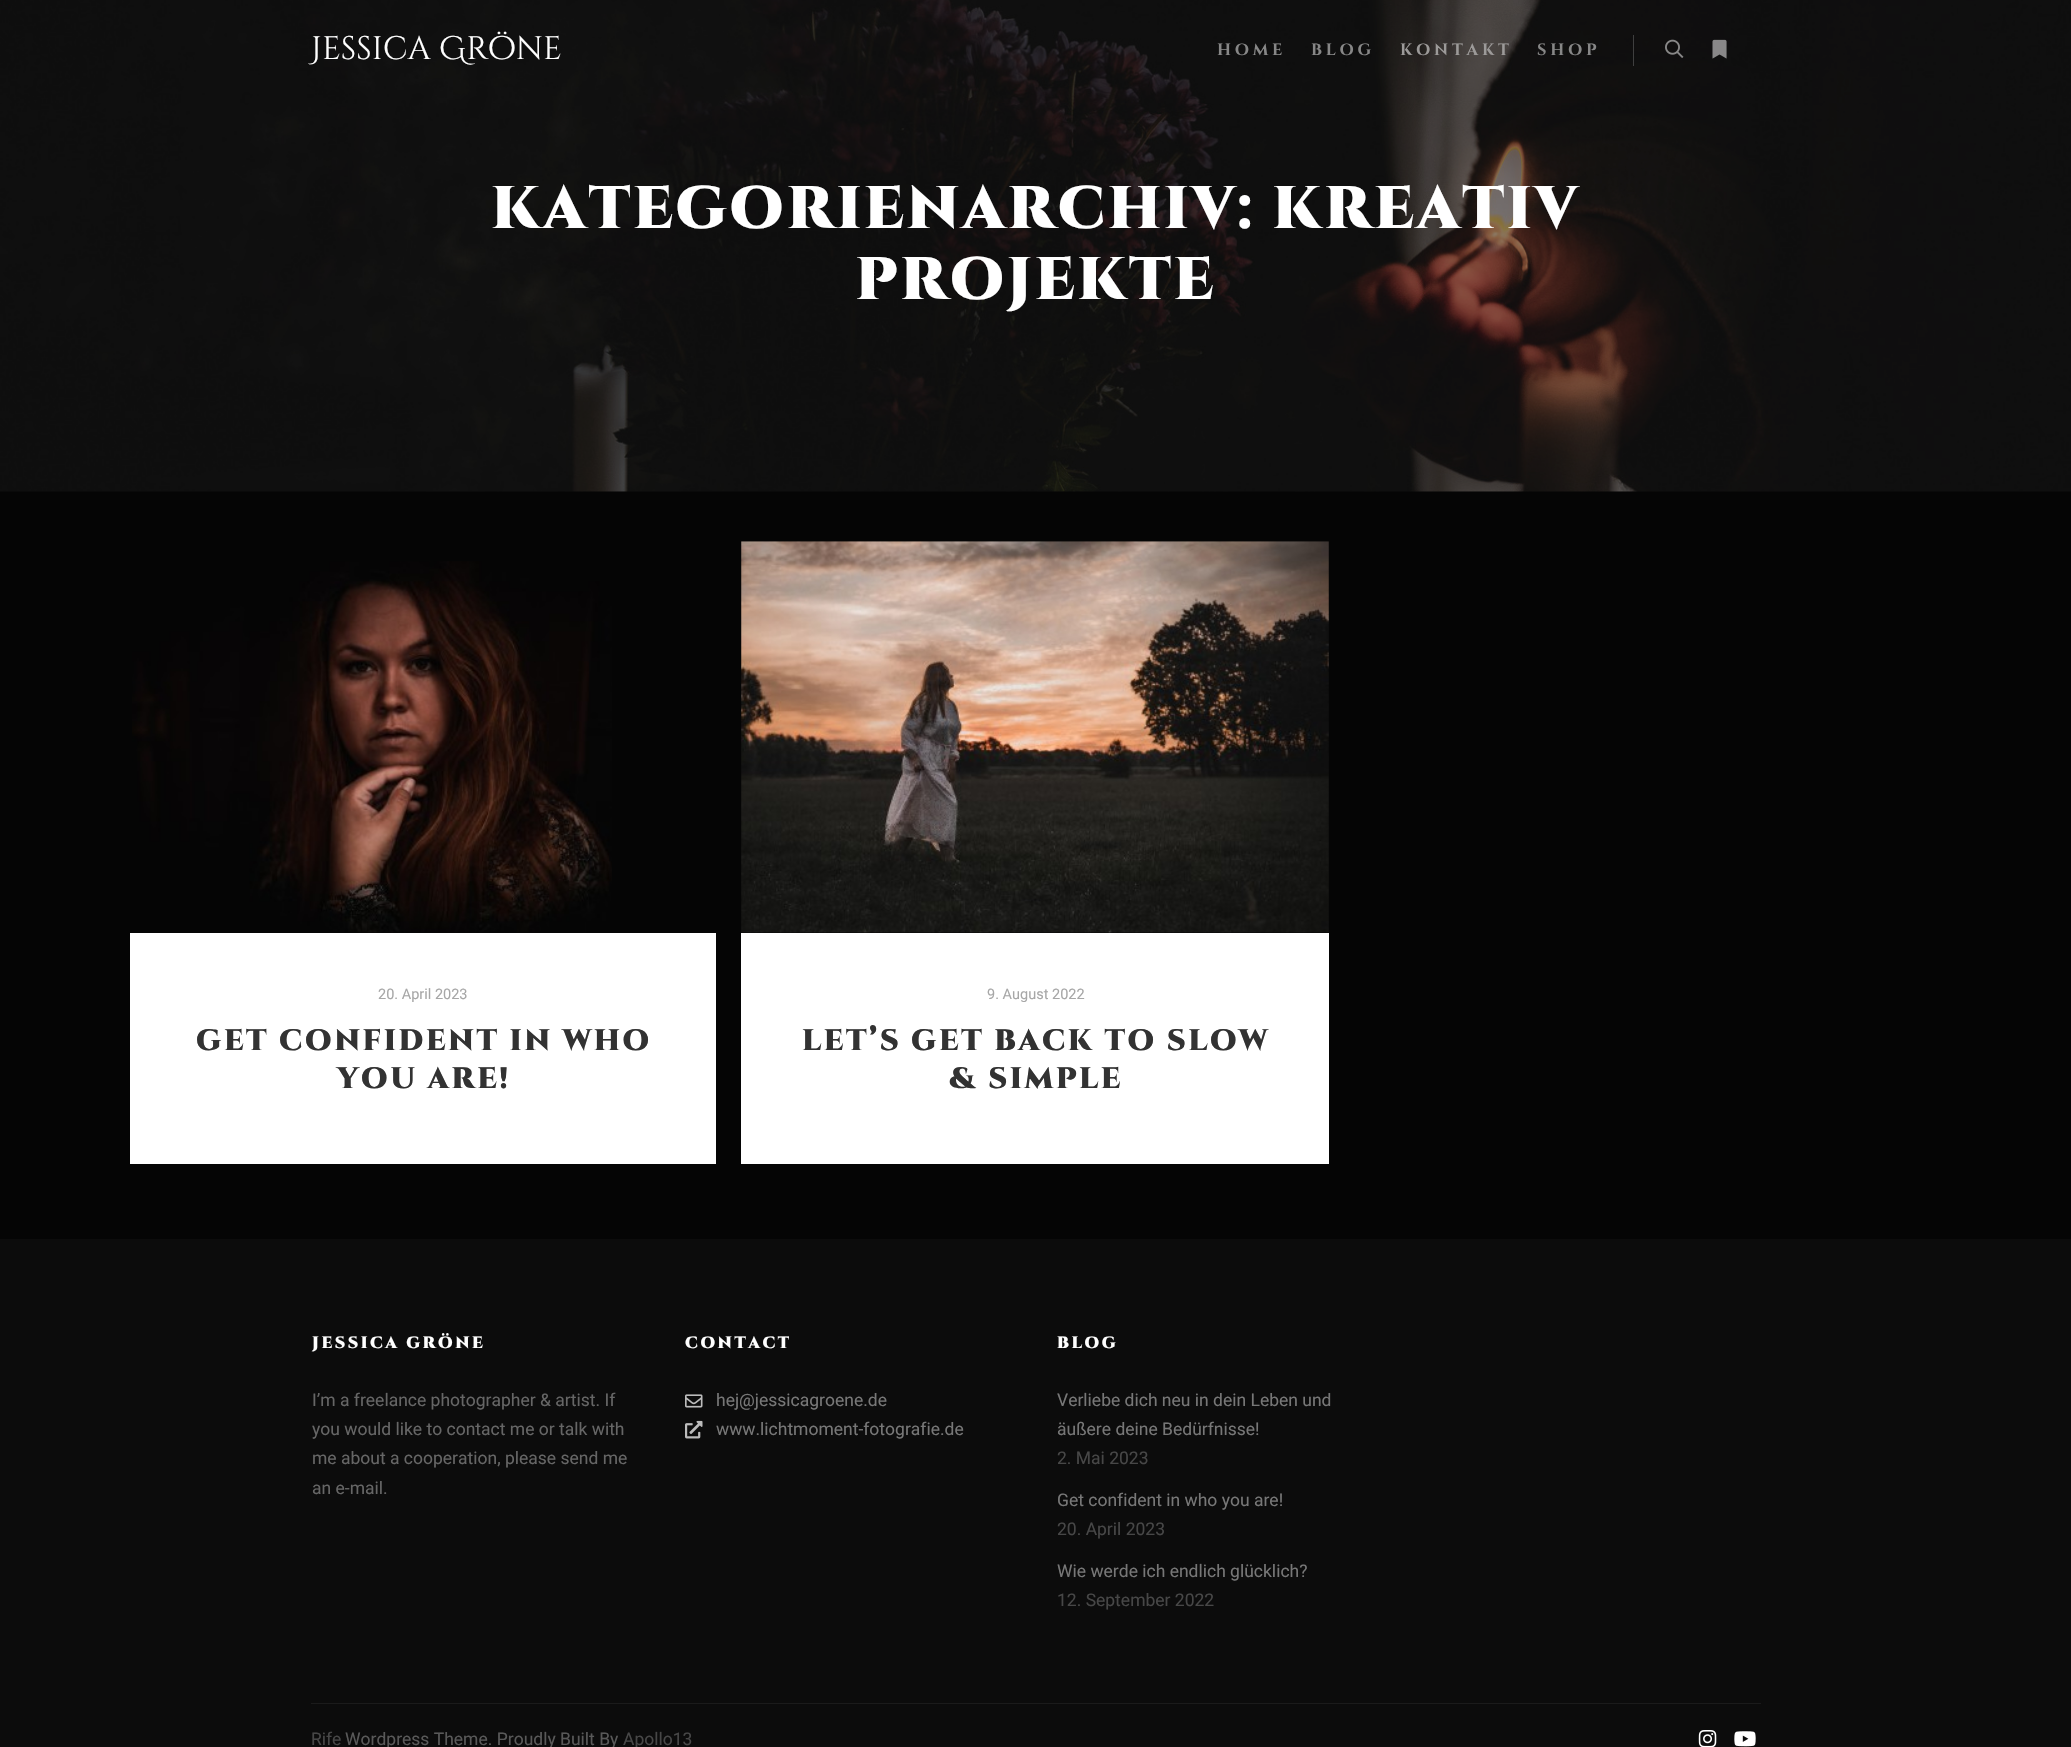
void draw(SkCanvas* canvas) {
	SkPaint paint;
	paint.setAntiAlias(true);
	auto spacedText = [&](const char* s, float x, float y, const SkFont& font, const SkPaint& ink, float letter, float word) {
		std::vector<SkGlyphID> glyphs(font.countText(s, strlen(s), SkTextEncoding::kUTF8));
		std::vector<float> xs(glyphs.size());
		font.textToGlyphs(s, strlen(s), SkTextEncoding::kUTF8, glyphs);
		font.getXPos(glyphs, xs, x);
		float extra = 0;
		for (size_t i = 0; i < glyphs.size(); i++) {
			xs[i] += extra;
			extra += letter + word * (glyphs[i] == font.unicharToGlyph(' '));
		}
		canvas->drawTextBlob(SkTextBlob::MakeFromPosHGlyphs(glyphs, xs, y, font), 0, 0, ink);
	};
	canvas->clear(0xff050505);
	canvas->drawImageRect(SkImages::DeferredFromEncodedData(SkData::MakeFromFileName("img3.png")), SkRect::MakeXYWH(0, 0, 2071, 492), SkSamplingOptions());
	SkFont f1(fontMgr->matchFamilyStyle("Cinzel Decorative", SkFontStyle::Normal()), 32.5);
	f1.setSubpixel(true);
	paint.setColor(0xffffffff);
	canvas->drawString("Jessica Gröne", 311, 59, f1, paint);
	SkFont f2(fontMgr->matchFamilyStyle("Cinzel", SkFontStyle::Bold()), 16.25);
	f2.setSubpixel(true);
	paint.setColor(0xff878787);
	spacedText("HOME", 1217, 55, f2, paint, 3.75, 0);
	spacedText("BLOG", 1311, 55, f2, paint, 3.75, 0);
	paint.setColor(0xff9c9a99);
	spacedText("KONTAKT", 1400, 55, f2, paint, 3.75, 0);
	paint.setColor(0xff878787);
	spacedText("SHOP", 1537, 55, f2, paint, 3.75, 0);
	paint.setColor(0xff3f3f3f);
	canvas->drawRect(SkRect::MakeXYWH(1633, 35, 1, 31), paint);
	canvas->drawImageRect(SkImages::DeferredFromEncodedData(SkData::MakeFromFileName("img1.png")), SkRect::MakeXYWH(1665, 39, 19, 19), SkSamplingOptions());
	canvas->drawImageRect(SkImages::DeferredFromEncodedData(SkData::MakeFromFileName("img2.png")), SkRect::MakeXYWH(1712, 39, 15, 20), SkSamplingOptions());
	SkFont f3(fontMgr->matchFamilyStyle("Cinzel", SkFontStyle(900, SkFontStyle::kNormal_Width, SkFontStyle::kUpright_Slant)), 60);
	f3.setSubpixel(true);
	paint.setColor(0xffffffff);
	spacedText("KATEGORIENARCHIV: KREATIV", 491, 228, f3, paint, 2.5, 0);
	spacedText("PROJEKTE", 855, 299, f3, paint, 2.5, 0);
	canvas->drawImageRect(SkImages::DeferredFromEncodedData(SkData::MakeFromFileName("img4.png")), SkRect::MakeXYWH(132, 561, 480, 372), SkSamplingOptions());
	canvas->drawRect(SkRect::MakeXYWH(130, 933, 586, 231), paint);
	SkFont f4(fontMgr->matchFamilyStyle("Roboto", SkFontStyle::Normal()), 14.5);
	f4.setSubpixel(true);
	paint.setColor(0xffa7a7a7);
	canvas->drawString("20. April 2023", 378, 999, f4, paint);
	SkFont f5(fontMgr->matchFamilyStyle("Cinzel", SkFontStyle(900, SkFontStyle::kNormal_Width, SkFontStyle::kUpright_Slant)), 29.5);
	f5.setSubpixel(true);
	paint.setColor(0xff323232);
	spacedText("GET CONFIDENT IN WHO", 196, 1050, f5, paint, 2.5, 0);
	spacedText("YOU ARE!", 337, 1088, f5, paint, 2.5, 0);
	canvas->drawImageRect(SkImages::DeferredFromEncodedData(SkData::MakeFromFileName("img5.png")), SkRect::MakeXYWH(741, 541, 588, 392), SkSamplingOptions());
	paint.setColor(0xffffffff);
	canvas->drawRect(SkRect::MakeXYWH(741, 933, 588, 231), paint);
	paint.setColor(0xffa7a7a7);
	canvas->drawString("9. August 2022", 987, 999, f4, paint);
	paint.setColor(0xff323232);
	spacedText("LET’S GET BACK TO SLOW", 802, 1050, f5, paint, 2.5, 0);
	spacedText("& SIMPLE", 949, 1088, f5, paint, 2.5, 0);
	paint.setColor(0xff0c0c0c);
	canvas->drawRect(SkRect::MakeXYWH(0, 1239, 2071, 508), paint);
	SkFont f6(fontMgr->matchFamilyStyle("Cinzel", SkFontStyle(900, SkFontStyle::kNormal_Width, SkFontStyle::kUpright_Slant)), 16.25);
	f6.setSubpixel(true);
	paint.setColor(0xffffffff);
	spacedText("JESSICA GRÖNE", 312, 1348, f6, paint, 2.5, 0);
	SkFont f7(fontMgr->matchFamilyStyle("Roboto", SkFontStyle::Normal()), 17.5);
	f7.setSubpixel(true);
	paint.setColor(0xff666666);
	canvas->drawString("I’m a freelance photographer & artist. If", 312, 1406, f7, paint);
	canvas->drawString("you would like to contact me or talk with", 312, 1435, f7, paint);
	canvas->drawString("me about a cooperation, please send me", 312, 1464, f7, paint);
	canvas->drawString("an e-mail.", 312, 1494, f7, paint);
	paint.setColor(0xffffffff);
	spacedText("CONTACT", 685, 1348, f6, paint, 2.5, 0);
	canvas->drawImageRect(SkImages::DeferredFromEncodedData(SkData::MakeFromFileName("img6.png")), SkRect::MakeXYWH(685, 1394, 18, 14), SkSamplingOptions());
	paint.setColor(0xff777777);
	canvas->drawString("hej@jessicagroene.de", 716, 1406, f7, paint);
	canvas->drawImageRect(SkImages::DeferredFromEncodedData(SkData::MakeFromFileName("img7.png")), SkRect::MakeXYWH(685, 1420, 18, 19), SkSamplingOptions());
	canvas->drawString("www.lichtmoment-fotografie.de", 716, 1435, f7, paint);
	paint.setColor(0xffffffff);
	spacedText("BLOG", 1057, 1348, f6, paint, 2.5, 0);
	paint.setColor(0xff777777);
	canvas->drawString("Verliebe dich neu in dein Leben und", 1057, 1406, f7, paint);
	canvas->drawString("äußere deine Bedürfnisse!", 1057, 1435, f7, paint);
	paint.setColor(0xff474747);
	canvas->drawString("2. Mai 2023", 1057, 1464, f7, paint);
	paint.setColor(0xff777777);
	canvas->drawString("Get confident in who you are!", 1057, 1506, f7, paint);
	paint.setColor(0xff474747);
	canvas->drawString("20. April 2023", 1057, 1535, f7, paint);
	paint.setColor(0xff777777);
	canvas->drawString("Wie werde ich endlich glücklich?", 1057, 1577, f7, paint);
	paint.setColor(0xff474747);
	canvas->drawString("12. September 2022", 1057, 1606, f7, paint);
	paint.setColor(0xff1b1b1b);
	canvas->drawRect(SkRect::MakeXYWH(311, 1703, 1450, 1), paint);
	paint.setColor(0xff474747);
	canvas->drawString("Rife", 311, 1745, f7, paint);
	paint.setColor(0xff595959);
	canvas->drawString("Wordpress Theme. Proudly Built By", 345, 1745, f7, paint);
	paint.setColor(0xff474747);
	canvas->drawString("Apollo13", 623, 1745, f7, paint);
	canvas->drawImageRect(SkImages::DeferredFromEncodedData(SkData::MakeFromFileName("img8.png")), SkRect::MakeXYWH(1698, 1730, 19, 17), SkSamplingOptions());
	canvas->drawImageRect(SkImages::DeferredFromEncodedData(SkData::MakeFromFileName("img9.png")), SkRect::MakeXYWH(1734, 1731, 22, 16), SkSamplingOptions());
}
